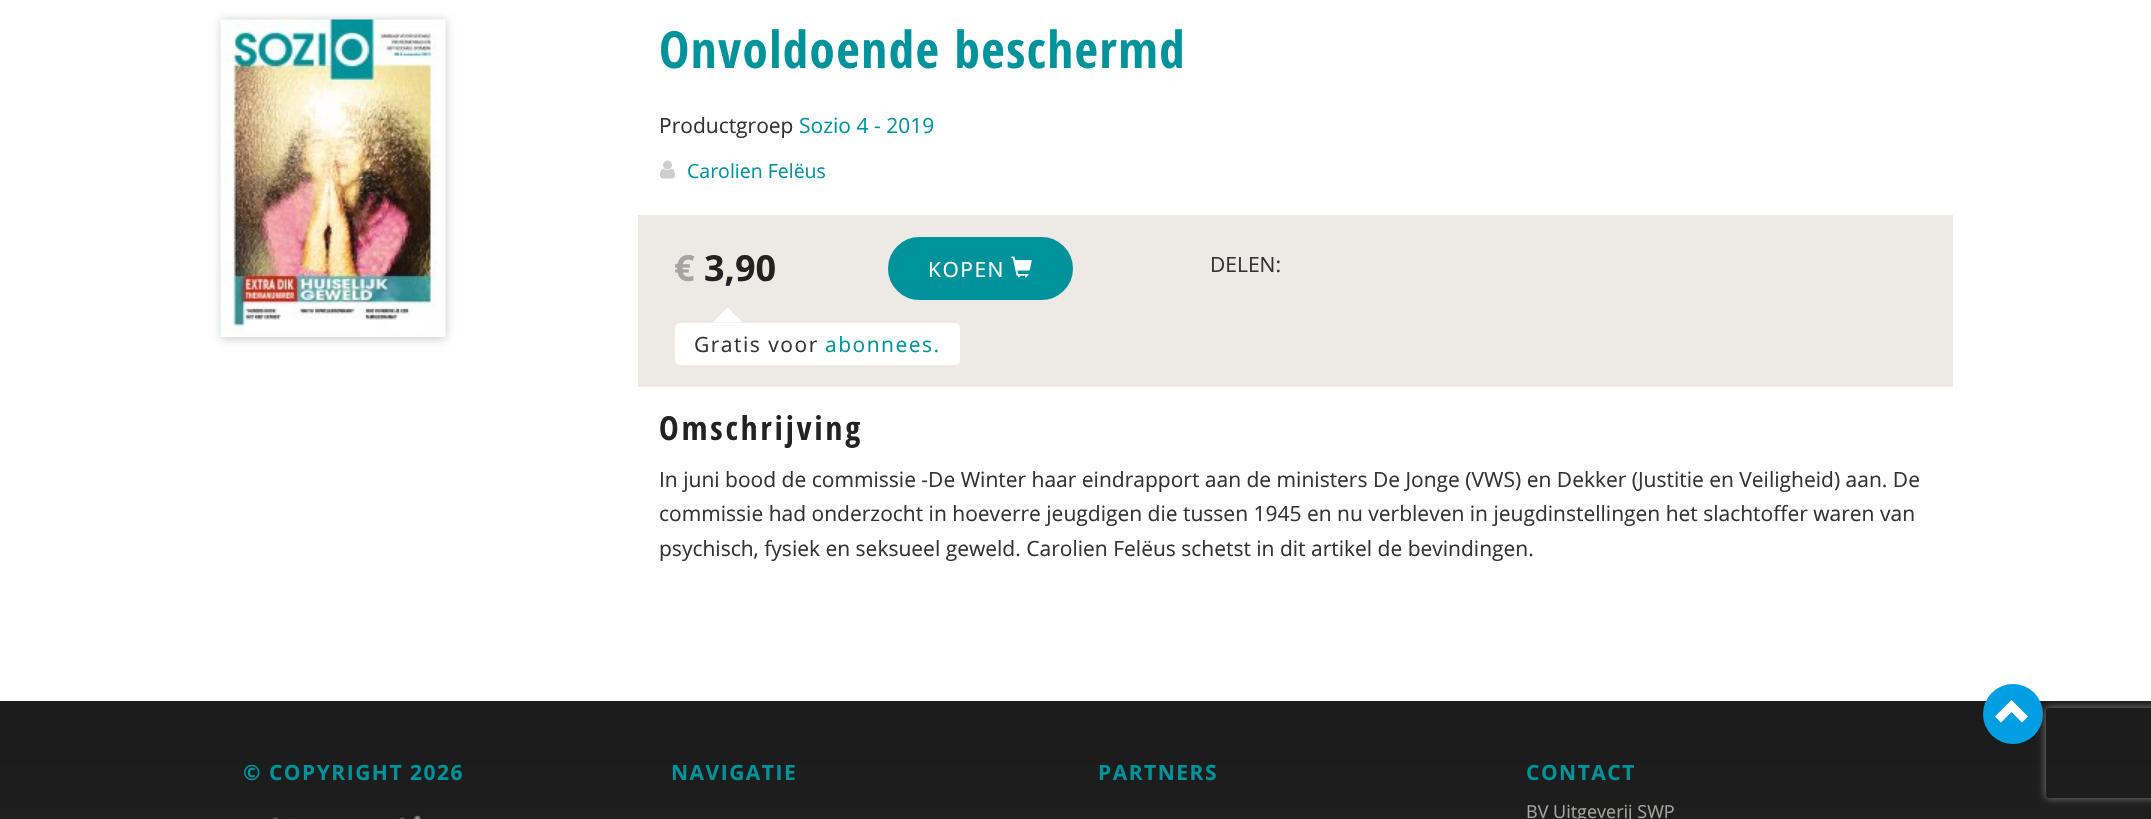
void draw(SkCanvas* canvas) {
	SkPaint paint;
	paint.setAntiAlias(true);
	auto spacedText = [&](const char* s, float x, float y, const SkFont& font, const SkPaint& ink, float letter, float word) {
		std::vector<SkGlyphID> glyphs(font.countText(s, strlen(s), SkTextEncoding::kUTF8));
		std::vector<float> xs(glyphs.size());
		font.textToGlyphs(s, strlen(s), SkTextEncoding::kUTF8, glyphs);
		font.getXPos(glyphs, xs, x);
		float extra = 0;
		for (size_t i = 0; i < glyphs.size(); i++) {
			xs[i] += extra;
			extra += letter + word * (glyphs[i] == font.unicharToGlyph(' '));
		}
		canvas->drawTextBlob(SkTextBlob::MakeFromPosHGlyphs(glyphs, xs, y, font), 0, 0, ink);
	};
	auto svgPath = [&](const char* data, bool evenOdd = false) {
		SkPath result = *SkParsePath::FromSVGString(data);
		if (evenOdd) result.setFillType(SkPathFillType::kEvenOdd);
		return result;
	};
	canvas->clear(0xffffffff);
	paint.setColor(0x33000000);
	paint.setMaskFilter(SkMaskFilter::MakeBlur(kNormal_SkBlurStyle, 4.5));
	canvas->drawRect(SkRect::MakeXYWH(221, 20, 225, 319), paint);
	paint.setMaskFilter(nullptr);
	canvas->drawImageRect(SkImages::DeferredFromEncodedData(SkData::MakeFromFileName("img1.png")), SkRect::MakeXYWH(220, 19, 226, 318), SkSamplingOptions());
	SkFont f1(fontMgr->matchFamilyStyle("Open Sans Condensed", SkFontStyle::Bold()), 51);
	f1.setSubpixel(true);
	paint.setColor(0xff00939b);
	spacedText("Onvoldoende beschermd", 659, 68, f1, paint, 1.5, 0);
	SkFont f2(fontMgr->matchFamilyStyle("Open Sans", SkFontStyle::Normal()), 21);
	f2.setSubpixel(true);
	paint.setColor(0xff333333);
	canvas->drawString("Productgroep", 659, 133, f2, paint);
	paint.setColor(0xff00939b);
	canvas->drawString("Sozio 4 - 2019", 799, 133, f2, paint);
	canvas->drawImageRect(SkImages::DeferredFromEncodedData(SkData::MakeFromFileName("img2.png")), SkRect::MakeXYWH(660, 160, 15, 19), SkSamplingOptions());
	SkFont f3(fontMgr->matchFamilyStyle("Open Sans", SkFontStyle::Normal()), 19.5);
	f3.setSubpixel(true);
	canvas->drawString("Carolien Felëus", 687, 178, f3, paint);
	paint.setColor(0xffedeae6);
	canvas->drawRect(SkRect::MakeXYWH(638, 215, 1315, 172), paint);
	SkFont f4(fontMgr->matchFamilyStyle("Open Sans", SkFontStyle::Bold()), 36);
	f4.setSubpixel(true);
	paint.setColor(0xffa6a4a1);
	canvas->drawString("€", 674, 281, f4, paint);
	paint.setColor(0xff222222);
	canvas->drawString("3,90", 704, 281, f4, paint);
	paint.setColor(0xff00939b);
	canvas->drawRoundRect(SkRect::MakeXYWH(889, 238, 183, 61), 30.5, 30.5, paint);
	paint.setStroke(true);
	paint.setStrokeWidth(2);
	canvas->drawRoundRect(SkRect::MakeXYWH(889, 238, 183, 61), 30.5, 30.5, paint);
	paint.setStroke(false);
	paint.setColor(0xffffffff);
	spacedText("KOPEN", 928, 277, f2, paint, 1.5, 0);
	canvas->drawImageRect(SkImages::DeferredFromEncodedData(SkData::MakeFromFileName("img3.png")), SkRect::MakeXYWH(1011, 256, 21, 22), SkSamplingOptions());
	paint.setColor(0xff333333);
	canvas->drawString("DELEN:", 1210, 272, f2, paint);
	paint.setColor(0xffffffff);
	canvas->drawRoundRect(SkRect::MakeXYWH(676, 324, 283, 40), 4, 4, paint);
	paint.setStroke(true);
	canvas->drawRoundRect(SkRect::MakeXYWH(676, 324, 283, 40), 4, 4, paint);
	paint.setStroke(false);
	canvas->drawPath(svgPath("M742.5 322.5H712.5L727.5 307.5Z"), paint);
	paint.setColor(0xff333333);
	spacedText("Gratis voor", 694, 352, f2, paint, 1.5, 0);
	paint.setColor(0xff00939b);
	spacedText("abonnees.", 825, 352, f2, paint, 1.5, 0);
	SkFont f5(fontMgr->matchFamilyStyle("Open Sans Condensed", SkFontStyle::Bold()), 33);
	f5.setSubpixel(true);
	paint.setColor(0xff222222);
	spacedText("Omschrijving", 659, 440, f5, paint, 3, 0);
	paint.setColor(0xff333333);
	canvas->drawString("In juni bood de commissie -De Winter haar eindrapport aan de ministers De Jonge (VWS) en Dekker (Justitie en Veiligheid) aan. De", 659, 487, f2, paint);
	canvas->drawString("commissie had onderzocht in hoeverre jeugdigen die tussen 1945 en nu verbleven in jeugdinstellingen het slachtoffer waren van", 659, 521, f2, paint);
	canvas->drawString("psychisch, fysiek en seksueel geweld. Carolien Felëus schetst in dit artikel de bevindingen.", 659, 556, f2, paint);
	{
		const SkColor colors[] = {0xff252525, 0xff1b1b1b};
		const float stops[] = {0, 1};
		const SkPoint ends[] = {{1076, 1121}, {1076, 701}};
		paint.setShader(SkGradientShader::MakeLinear(ends, colors, stops, 2, SkTileMode::kClamp));
		paint.setAlpha(255);
	}
	canvas->drawRect(SkRect::MakeXYWH(0, 701, 2151, 118), paint);
	SkFont f6(fontMgr->matchFamilyStyle("Open Sans", SkFontStyle::Bold()), 21);
	f6.setSubpixel(true);
	paint.setShader(nullptr);
	paint.setColor(0xff00939b);
	spacedText("© COPYRIGHT 2026", 243, 780, f6, paint, 1.5, 0);
	canvas->drawImageRect(SkImages::DeferredFromEncodedData(SkData::MakeFromFileName("img4.png")), SkRect::MakeXYWH(272, 815, 149, 4), SkSamplingOptions());
	spacedText("NAVIGATIE", 671, 780, f6, paint, 1.5, 0);
	spacedText("PARTNERS", 1098, 780, f6, paint, 1.5, 0);
	paint.setColor(0xff009fe3);
	canvas->drawCircle(2013, 714, 30, paint);
	paint.setColor(0xffffffff);
	canvas->drawPath(svgPath("M2028 716.5L2022 722.5L2011.5 712L2001 722.5L1995 716.5L2011.5 700Z"), paint);
	paint.setColor(0xff00939b);
	spacedText("CONTACT", 1526, 780, f6, paint, 1.5, 0);
	SkFont f7(fontMgr->matchFamilyStyle("Open Sans", SkFontStyle::Normal()), 18);
	f7.setSubpixel(true);
	paint.setColor(0xffa6a4a1);
	canvas->drawString("BV Uitgeverij SWP", 1526, 818, f7, paint);
	canvas->save();
	canvas->clipPath(svgPath("M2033 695H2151V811H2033ZM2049 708H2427C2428.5 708 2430 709.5 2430 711V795C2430 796.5 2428.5 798 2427 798H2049C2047.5 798 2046 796.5 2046 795V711C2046 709.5 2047.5 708 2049 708Z", true), true);
	paint.setColor(0xff808080);
	paint.setMaskFilter(SkMaskFilter::MakeBlur(kNormal_SkBlurStyle, 4));
	canvas->drawRoundRect(SkRect::MakeXYWH(2046, 708, 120, 90), 3, 3, paint);
	paint.setMaskFilter(nullptr);
	canvas->restore();
}
